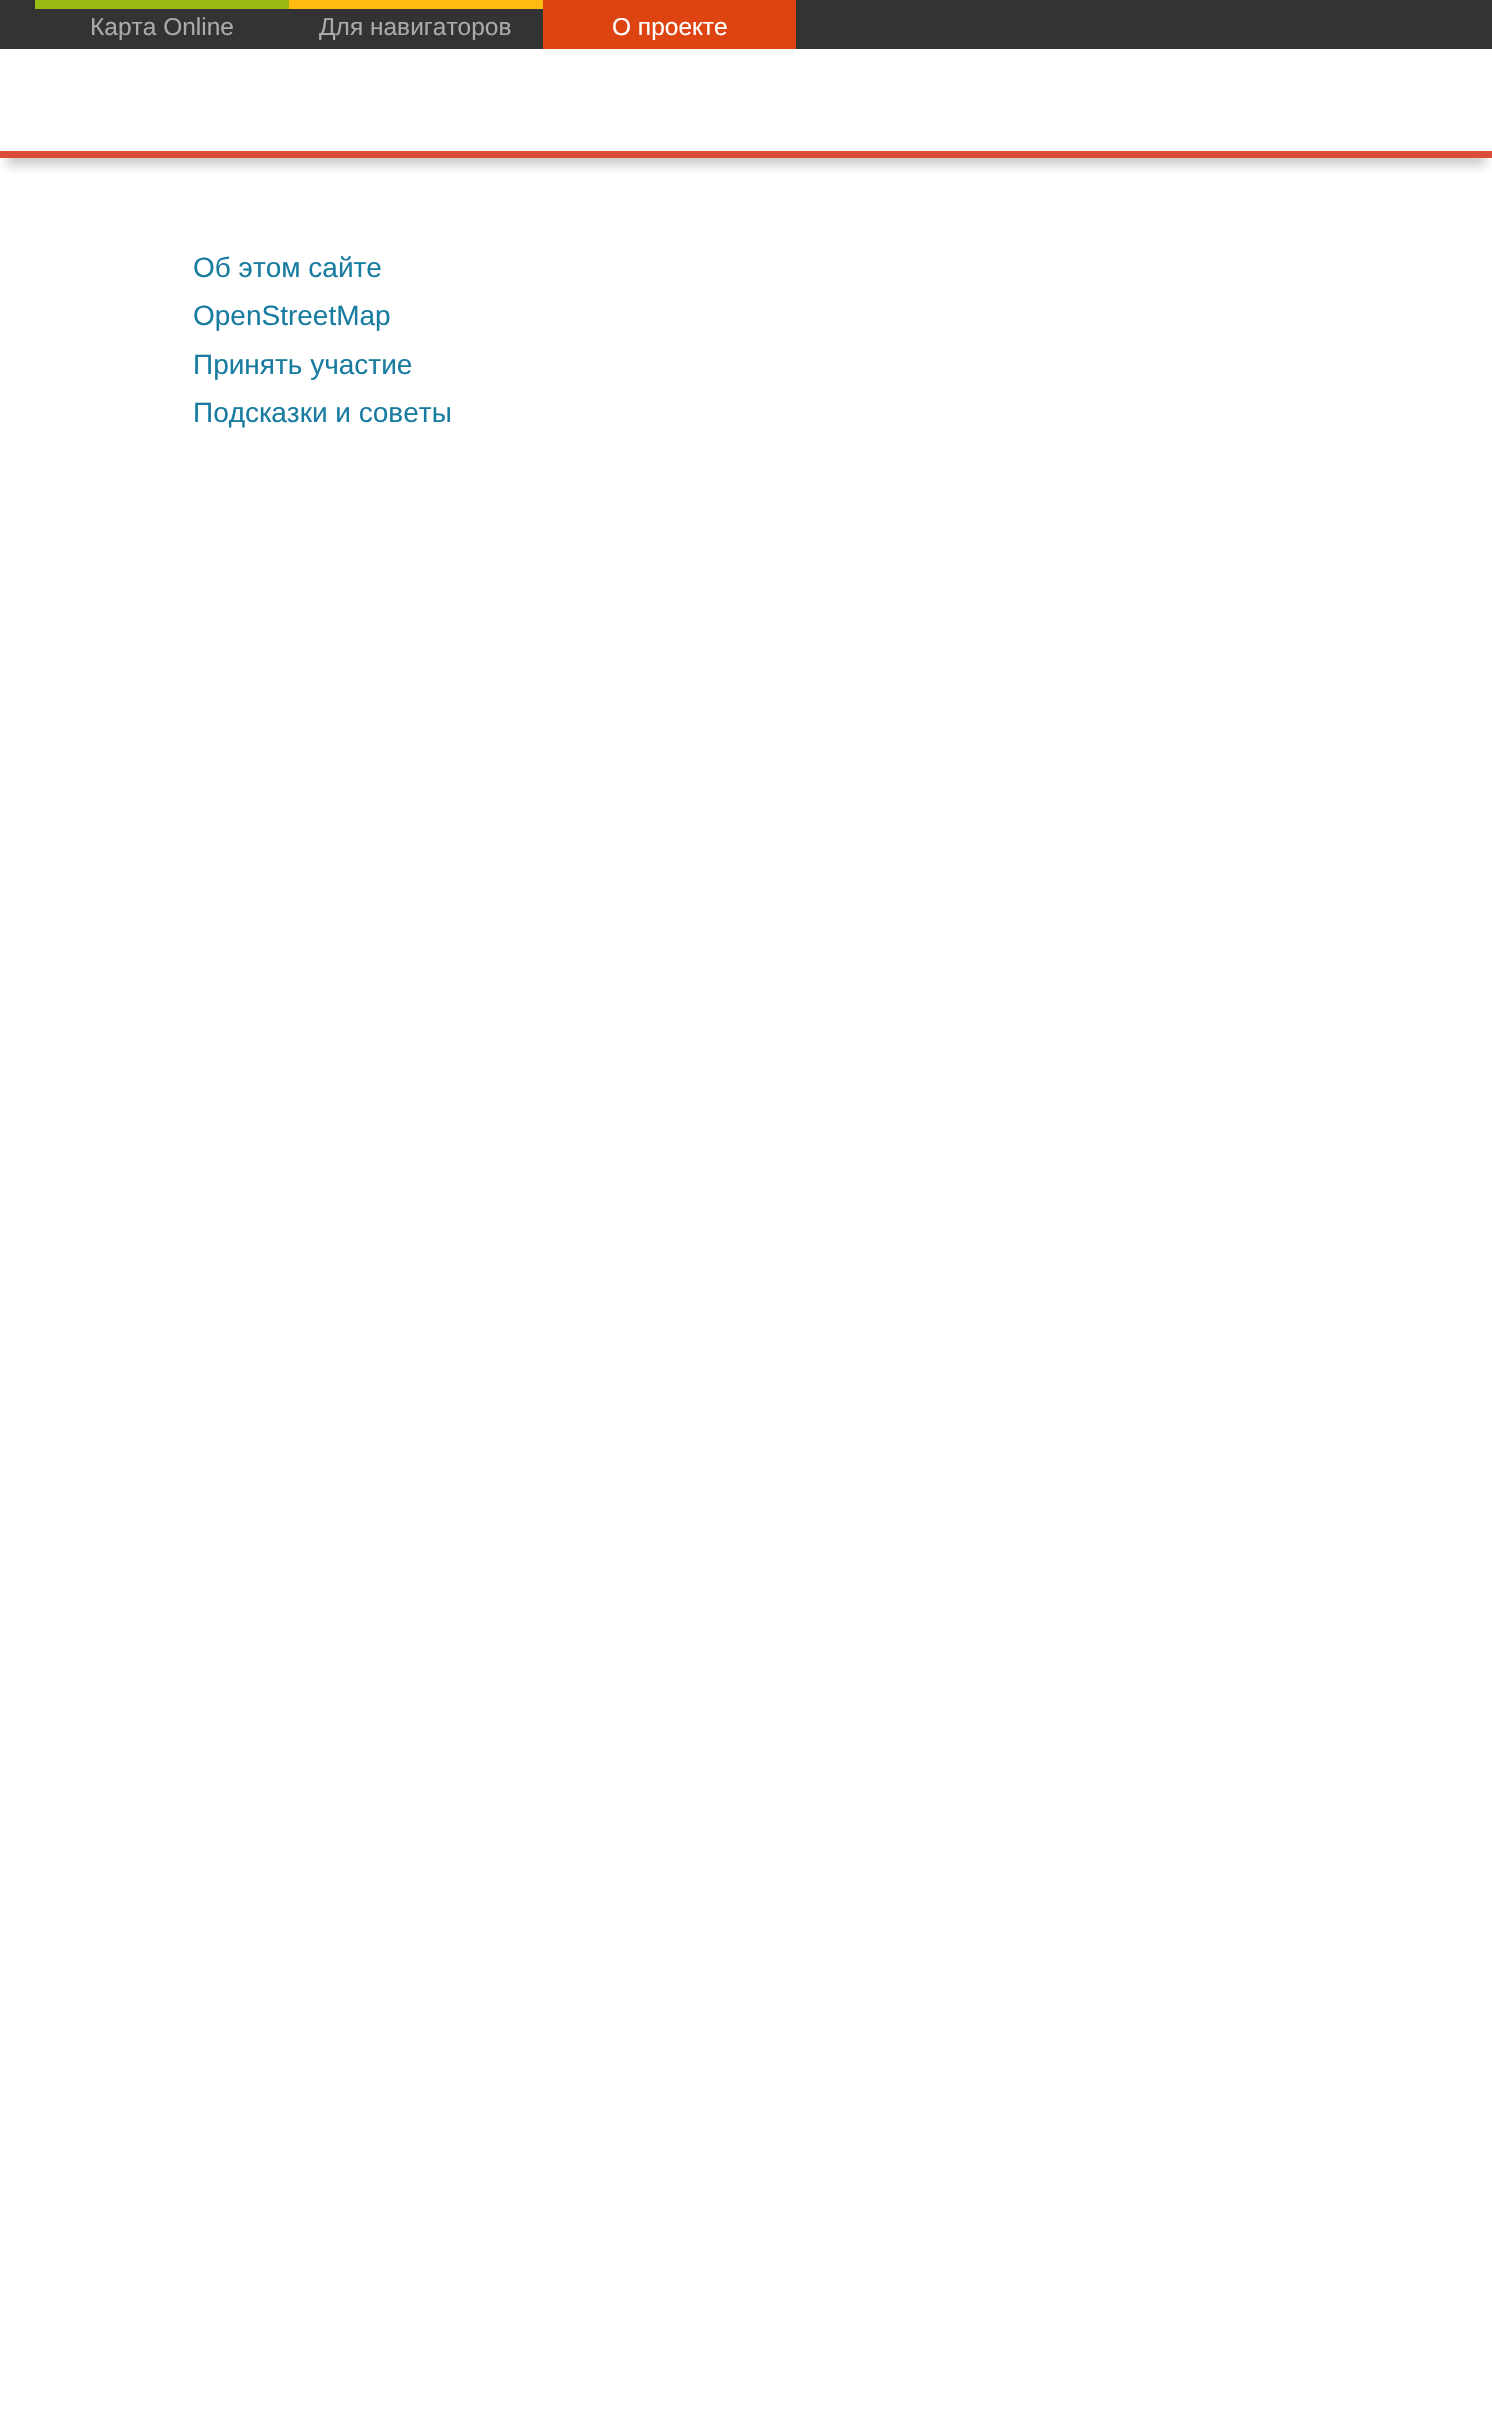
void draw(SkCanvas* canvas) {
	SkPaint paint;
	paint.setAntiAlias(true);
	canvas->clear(0xffffffff);
	canvas->save();
	canvas->clipRect(SkRect::MakeXYWH(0, 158, 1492, 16));
	paint.setColor(0x6b8a8a8a);
	paint.setMaskFilter(SkMaskFilter::MakeBlur(kNormal_SkBlurStyle, 5));
	canvas->drawRect(SkRect::MakeXYWH(7, 23, 1479, 143), paint);
	paint.setMaskFilter(nullptr);
	canvas->restore();
	paint.setColor(0xffdb4c39);
	canvas->drawRect(SkRect::MakeXYWH(0, 151, 1492, 7), paint);
	paint.setColor(0xff333333);
	canvas->drawRect(SkRect::MakeXYWH(0, 0, 1492, 49), paint);
	paint.setColor(0xff99bb11);
	canvas->drawRect(SkRect::MakeXYWH(35, 0, 254, 9), paint);
	SkFont f1(fontMgr->matchFamilyStyle("Liberation Sans", SkFontStyle::Normal()), 24.5);
	f1.setSubpixel(true);
	paint.setColor(0xffaaaaaa);
	canvas->drawString("Карта Online", 90, 35, f1, paint);
	paint.setColor(0xffffbb11);
	canvas->drawRect(SkRect::MakeXYWH(289, 0, 254, 9), paint);
	paint.setColor(0xffaaaaaa);
	canvas->drawString("Для навигаторов", 319, 35, f1, paint);
	paint.setColor(0xffdd4411);
	canvas->drawRect(SkRect::MakeXYWH(543, 0, 253, 49), paint);
	paint.setColor(0xffffffff);
	canvas->drawString("О проекте", 612, 35, f1, paint);
	SkFont f2(fontMgr->matchFamilyStyle("Liberation Sans", SkFontStyle::Normal()), 28);
	f2.setSubpixel(true);
	paint.setColor(0xff187ba0);
	canvas->drawString("Об этом сайте", 193, 277, f2, paint);
	canvas->drawString("OpenStreetMap", 193, 325, f2, paint);
	canvas->drawString("Принять участие", 193, 374, f2, paint);
	canvas->drawString("Подсказки и советы", 193, 422, f2, paint);
}
